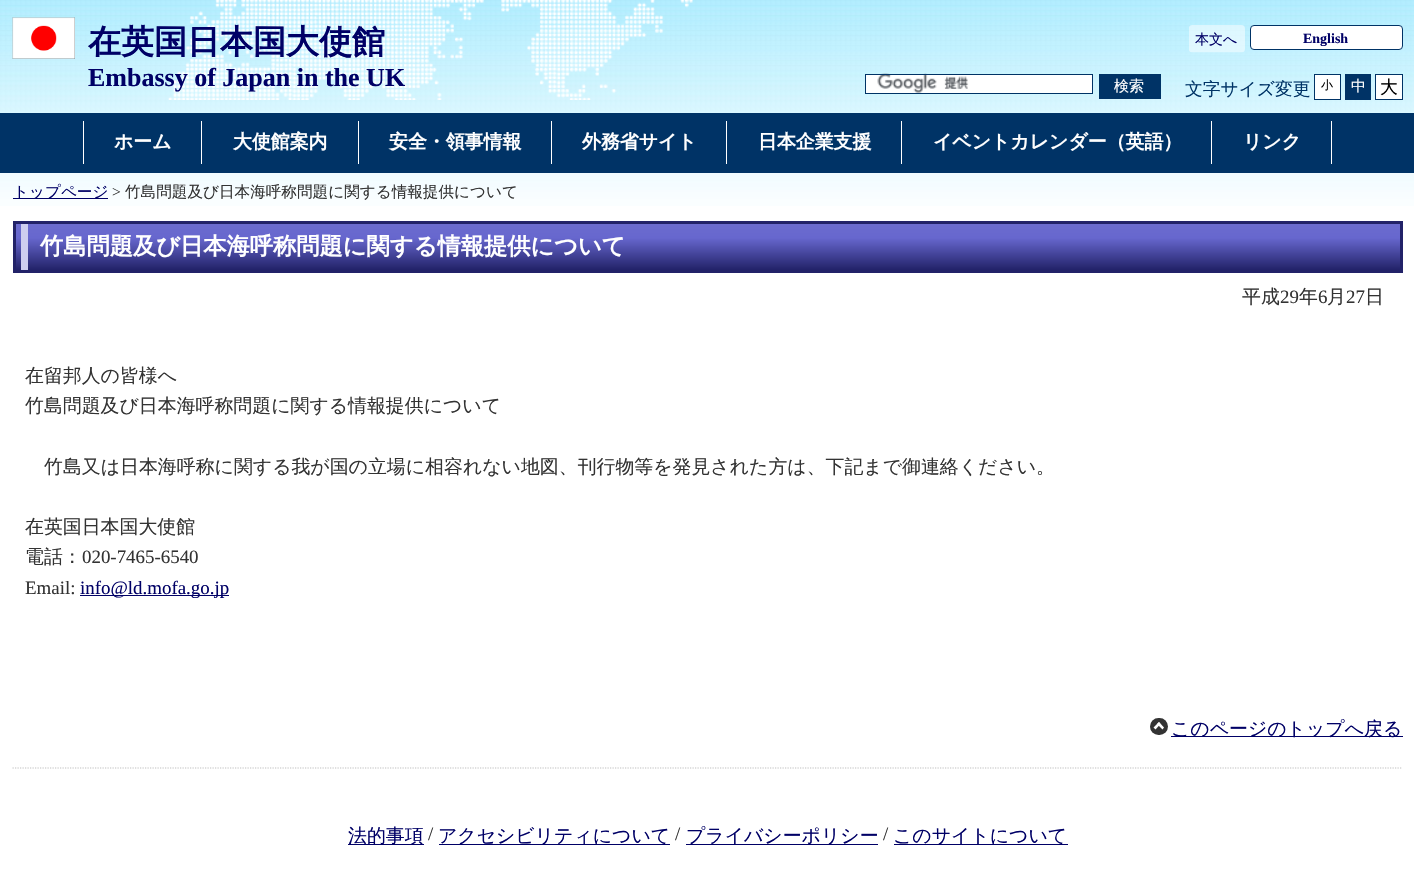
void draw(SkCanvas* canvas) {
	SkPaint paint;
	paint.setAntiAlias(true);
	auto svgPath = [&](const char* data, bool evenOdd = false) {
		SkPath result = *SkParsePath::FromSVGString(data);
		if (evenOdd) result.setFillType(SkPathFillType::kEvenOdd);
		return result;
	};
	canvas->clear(0xffffffff);
	canvas->drawImageRect(SkImages::DeferredFromEncodedData(SkData::MakeFromFileName("img1.png")), SkRect::MakeXYWH(0, 0, 1414, 206), SkSamplingOptions());
	canvas->drawImageRect(SkImages::DeferredFromEncodedData(SkData::MakeFromFileName("img2.png")), SkRect::MakeXYWH(168, 0, 525, 100), SkSamplingOptions());
	canvas->drawImageRect(SkImages::DeferredFromEncodedData(SkData::MakeFromFileName("img3.png")), SkRect::MakeXYWH(12, 17, 63, 42), SkSamplingOptions());
	SkFont f1(fontMgr->matchFamilyStyle("WenQuanYi Zen Hei", SkFontStyle::Bold()), 33);
	f1.setSubpixel(true);
	paint.setColor(0xff000066);
	canvas->drawString("在英国日本国大使館", 88, 53, f1, paint);
	SkFont f2(fontMgr->matchFamilyStyle("Liberation Serif", SkFontStyle::Bold()), 26);
	f2.setSubpixel(true);
	canvas->drawString("Embassy of Japan in the UK", 88, 86, f2, paint);
	canvas->drawImageRect(SkImages::DeferredFromEncodedData(SkData::MakeFromFileName("img4.png")), SkRect::MakeXYWH(1189, 25, 56, 28), SkSamplingOptions());
	SkFont f3(fontMgr->matchFamilyStyle("WenQuanYi Zen Hei", SkFontStyle(500, SkFontStyle::kNormal_Width, SkFontStyle::kUpright_Slant)), 14);
	f3.setSubpixel(true);
	canvas->drawString("本文へ", 1195, 44, f3, paint);
	paint.setColor(0xffffffff);
	canvas->drawRoundRect(SkRect::MakeXYWH(1250.5, 25.5, 152, 24), 3.5, 3.5, paint);
	paint.setStroke(true);
	paint.setStrokeWidth(1);
	paint.setColor(0xff003366);
	canvas->drawRoundRect(SkRect::MakeXYWH(1250.5, 25.5, 152, 24), 3.5, 3.5, paint);
	SkFont f4(fontMgr->matchFamilyStyle("Liberation Serif", SkFontStyle::Bold()), 14);
	f4.setSubpixel(true);
	paint.setStroke(false);
	paint.setColor(0xff000066);
	canvas->drawString("English", 1303, 43, f4, paint);
	paint.setColor(0xffffffff);
	canvas->drawRect(SkRect::MakeXYWH(866, 75, 226, 18), paint);
	canvas->drawImageRect(SkImages::DeferredFromEncodedData(SkData::MakeFromFileName("img5.png")), SkRect::MakeXYWH(877, 73, 92, 20), SkSamplingOptions());
	paint.setStroke(true);
	paint.setColor(0xff003366);
	canvas->drawRect(SkRect::MakeXYWH(865.5, 74.5, 227, 19), paint);
	paint.setStroke(false);
	canvas->drawRect(SkRect::MakeXYWH(1099, 74, 62, 25), paint);
	SkFont f5(fontMgr->matchFamilyStyle("WenQuanYi Zen Hei", SkFontStyle(500, SkFontStyle::kNormal_Width, SkFontStyle::kUpright_Slant)), 15);
	f5.setSubpixel(true);
	paint.setColor(0xffffffff);
	canvas->drawString("検索", 1114, 91, f5, paint);
	SkFont f6(fontMgr->matchFamilyStyle("WenQuanYi Zen Hei", SkFontStyle(500, SkFontStyle::kNormal_Width, SkFontStyle::kUpright_Slant)), 17.75);
	f6.setSubpixel(true);
	paint.setColor(0xff003366);
	canvas->drawString("文字サイズ変更", 1185, 95, f6, paint);
	paint.setColor(0xffffffff);
	canvas->drawRect(SkRect::MakeXYWH(1314.5, 74.5, 26, 25), paint);
	paint.setStroke(true);
	paint.setColor(0xff003366);
	canvas->drawRect(SkRect::MakeXYWH(1314.5, 74.5, 26, 25), paint);
	SkFont f7(fontMgr->matchFamilyStyle("WenQuanYi Zen Hei", SkFontStyle(500, SkFontStyle::kNormal_Width, SkFontStyle::kUpright_Slant)), 12);
	f7.setSubpixel(true);
	paint.setStroke(false);
	paint.setColor(0xff000000);
	canvas->drawString("小", 1321, 89, f7, paint);
	paint.setColor(0xff003366);
	canvas->drawRect(SkRect::MakeXYWH(1345, 74, 26, 26), paint);
	paint.setColor(0xffffffff);
	canvas->drawString("中", 1351, 91, f5, paint);
	canvas->drawRect(SkRect::MakeXYWH(1375.5, 74.5, 27, 25), paint);
	paint.setStroke(true);
	paint.setColor(0xff003366);
	canvas->drawRect(SkRect::MakeXYWH(1375.5, 74.5, 27, 25), paint);
	paint.setStroke(false);
	paint.setColor(0xff000000);
	canvas->drawString("大", 1380, 93, f6, paint);
	paint.setColor(0xff003366);
	canvas->drawRect(SkRect::MakeXYWH(0, 113, 1414, 60), paint);
	paint.setColor(0xffffffff);
	canvas->drawRect(SkRect::MakeXYWH(201, 121, 1, 43), paint);
	canvas->drawRect(SkRect::MakeXYWH(83, 121, 1, 43), paint);
	SkFont f8(fontMgr->matchFamilyStyle("WenQuanYi Zen Hei", SkFontStyle::Bold()), 18.9);
	f8.setSubpixel(true);
	canvas->drawString("ホーム", 114, 148, f8, paint);
	canvas->drawRect(SkRect::MakeXYWH(358, 121, 1, 43), paint);
	canvas->drawString("大使館案内", 233, 148, f8, paint);
	canvas->drawRect(SkRect::MakeXYWH(551, 121, 1, 43), paint);
	canvas->drawString("安全・領事情報", 389, 148, f8, paint);
	canvas->drawRect(SkRect::MakeXYWH(726, 121, 1, 43), paint);
	canvas->drawString("外務省サイト", 582, 148, f8, paint);
	canvas->drawRect(SkRect::MakeXYWH(901, 121, 1, 43), paint);
	canvas->drawString("日本企業支援", 758, 148, f8, paint);
	canvas->drawRect(SkRect::MakeXYWH(1211, 121, 1, 43), paint);
	canvas->drawString("イベントカレンダー（英語）", 933, 148, f8, paint);
	canvas->drawRect(SkRect::MakeXYWH(1331, 121, 1, 43), paint);
	canvas->drawString("リンク", 1243, 148, f8, paint);
	paint.setColor(0xff000066);
	canvas->drawRect(SkRect::MakeXYWH(13, 198, 95, 1), paint);
	SkFont f9(fontMgr->matchFamilyStyle("WenQuanYi Zen Hei", SkFontStyle(500, SkFontStyle::kNormal_Width, SkFontStyle::kUpright_Slant)), 15.6);
	f9.setSubpixel(true);
	canvas->drawString("トップページ", 13, 197, f9, paint);
	SkFont f10(fontMgr->matchFamilyStyle("Liberation Serif", SkFontStyle::Normal()), 15.6);
	f10.setSubpixel(true);
	paint.setColor(0xff333333);
	canvas->drawString(">", 112, 197, f10, paint);
	canvas->drawString("竹島問題及び日本海呼称問題に関する情報提供について", 125, 197, f9, paint);
	{
		const SkColor colors[] = {0xff6b6bce, 0xff6767ce, 0xff222268};
		const float stops[] = {0, 0.3, 1};
		const SkPoint ends[] = {{708, 224}, {708, 270}};
		paint.setShader(SkGradientShader::MakeLinear(ends, colors, stops, 3, SkTileMode::kClamp));
		paint.setAlpha(255);
	}
	canvas->drawRect(SkRect::MakeXYWH(16, 224, 1384, 46), paint);
	paint.setStroke(true);
	paint.setStrokeWidth(3);
	paint.setShader(nullptr);
	paint.setColor(0xff222268);
	canvas->drawRect(SkRect::MakeXYWH(14.5, 222.5, 1387, 49), paint);
	paint.setStroke(false);
	paint.setColor(0xffceceef);
	canvas->drawRect(SkRect::MakeXYWH(21, 224, 7, 46), paint);
	SkFont f11(fontMgr->matchFamilyStyle("WenQuanYi Zen Hei", SkFontStyle::Bold()), 23.25);
	f11.setSubpixel(true);
	paint.setColor(0xffffffff);
	canvas->drawString("竹島問題及び日本海呼称問題に関する情報提供について", 40, 254, f11, paint);
	SkFont f12(fontMgr->matchFamilyStyle("WenQuanYi Zen Hei", SkFontStyle(500, SkFontStyle::kNormal_Width, SkFontStyle::kUpright_Slant)), 18.9);
	f12.setSubpixel(true);
	paint.setColor(0xff333333);
	canvas->drawString("平成", 1242, 303, f12, paint);
	SkFont f13(fontMgr->matchFamilyStyle("Liberation Serif", SkFontStyle::Normal()), 18.9);
	f13.setSubpixel(true);
	canvas->drawString("29", 1280, 303, f13, paint);
	canvas->drawString("年", 1299, 303, f12, paint);
	canvas->drawString("6", 1318, 303, f13, paint);
	canvas->drawString("月", 1327, 303, f12, paint);
	canvas->drawString("27", 1346, 303, f13, paint);
	canvas->drawString("日", 1365, 303, f12, paint);
	canvas->drawString("在留邦人の皆様へ", 25, 382, f12, paint);
	canvas->drawString("竹島問題及び日本海呼称問題に関する情報提供について", 25, 412, f12, paint);
	canvas->drawString("竹島又は日本海呼称に関する我が国の立場に相容れない地図、刊行物等を発見された方は、下記まで御連絡ください。", 44, 473, f12, paint);
	canvas->drawString("在英国日本国大使館", 25, 533, f12, paint);
	canvas->drawString("電話：", 25, 563, f12, paint);
	canvas->drawString("020-7465-6540", 82, 563, f13, paint);
	canvas->drawString("Email:", 25, 594, f13, paint);
	paint.setColor(0xff000066);
	canvas->drawRect(SkRect::MakeXYWH(80, 595, 149, 1), paint);
	canvas->drawString("info@ld.mofa.go.jp", 80, 594, f13, paint);
	paint.setColor(0xff333333);
	canvas->drawRoundRect(SkRect::MakeXYWH(1150, 718, 18, 17), 8.5, 8.5, paint);
	paint.setColor(0xff000066);
	canvas->drawRect(SkRect::MakeXYWH(1171, 736, 232, 1), paint);
	canvas->drawString("このページのトップへ戻る", 1171, 735, f12, paint);
	paint.setColor(0xffffffff);
	canvas->drawPath(svgPath("M1155.5 729.5L1153.5 727.5L1159 722L1160.5 724Z"), paint);
	canvas->drawPath(svgPath("M1162.5 729.5L1157 724L1159 722L1164 727.5Z"), paint);
	paint.setStroke(true);
	paint.setStrokeWidth(1.2);
	paint.setColor(0xffbfbfbf);
	paint.setPathEffect(SkDashPathEffect::Make({{1.25f, 1.25f}}, 0));
	canvas->drawPath(svgPath("M12.5 768H1402.5"), paint);
	paint.setPathEffect(nullptr);
	paint.setStroke(false);
	paint.setColor(0xff000066);
	canvas->drawRect(SkRect::MakeXYWH(348, 844, 76, 1), paint);
	canvas->drawString("法的事項", 348, 842, f12, paint);
	paint.setColor(0xff333333);
	canvas->drawString("/", 428, 840, f13, paint);
	paint.setColor(0xff000066);
	canvas->drawRect(SkRect::MakeXYWH(439, 844, 231, 1), paint);
	canvas->drawString("アクセシビリティについて", 438, 842, f12, paint);
	paint.setColor(0xff333333);
	canvas->drawString("/", 675, 840, f13, paint);
	paint.setColor(0xff000066);
	canvas->drawRect(SkRect::MakeXYWH(686, 844, 192, 1), paint);
	canvas->drawString("プライバシーポリシー", 686, 842, f12, paint);
	paint.setColor(0xff333333);
	canvas->drawString("/", 883, 840, f13, paint);
	paint.setColor(0xff000066);
	canvas->drawRect(SkRect::MakeXYWH(894, 844, 174, 1), paint);
	canvas->drawString("このサイトについて", 893, 842, f12, paint);
}
